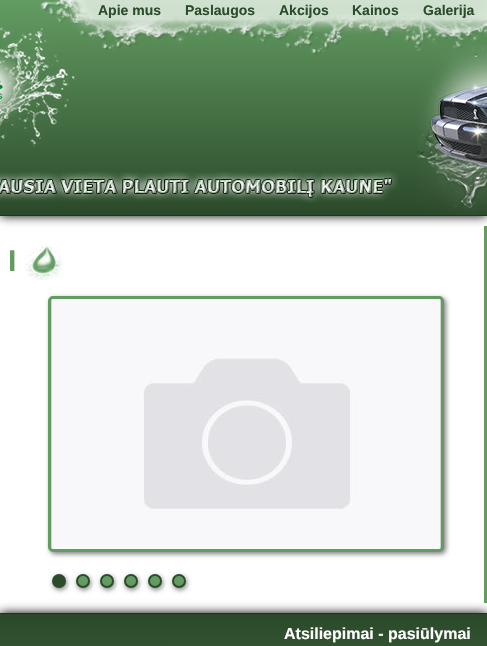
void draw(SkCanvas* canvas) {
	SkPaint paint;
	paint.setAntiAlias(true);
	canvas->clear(0xffffffff);
	paint.setColor(0xff000000);
	paint.setMaskFilter(SkMaskFilter::MakeBlur(kNormal_SkBlurStyle, 5));
	canvas->drawRect(SkRect::MakeXYWH(0, 0, 487, 216), paint);
	paint.setMaskFilter(nullptr);
	{
		const SkColor colors[] = {0xff2b492a, 0xff639c62};
		const float stops[] = {0, 1};
		const SkPoint ends[] = {{244, 215}, {244, 0}};
		paint.setShader(SkGradientShader::MakeLinear(ends, colors, stops, 2, SkTileMode::kClamp));
		paint.setAlpha(255);
	}
	canvas->drawRect(SkRect::MakeXYWH(0, 0, 487, 215), paint);
	paint.setShader(nullptr);
	paint.setColor(0xff2b2b2b);
	canvas->drawRect(SkRect::MakeXYWH(0, 215, 487, 1), paint);
	canvas->drawImageRect(SkImages::DeferredFromEncodedData(SkData::MakeFromFileName("img2.png")), SkRect::MakeXYWH(0, 27, 76, 120), SkSamplingOptions());
	canvas->drawImageRect(SkImages::DeferredFromEncodedData(SkData::MakeFromFileName("img1.png")), SkRect::MakeXYWH(40, 0, 447, 55), SkSamplingOptions());
	SkFont f1(fontMgr->matchFamilyStyle("Liberation Sans", SkFontStyle::Bold()), 14);
	f1.setSubpixel(true);
	paint.setColor(0xff2c4b2b);
	canvas->drawString("Apie mus", 98, 15, f1, paint);
	canvas->drawString("Paslaugos", 185, 15, f1, paint);
	canvas->drawString("Akcijos", 279, 15, f1, paint);
	canvas->drawString("Kainos", 352, 15, f1, paint);
	canvas->drawString("Galerija", 423, 15, f1, paint);
	canvas->drawImageRect(SkImages::DeferredFromEncodedData(SkData::MakeFromFileName("img3.png")), SkRect::MakeXYWH(417, 44, 70, 172), SkSamplingOptions());
	canvas->drawImageRect(SkImages::DeferredFromEncodedData(SkData::MakeFromFileName("img4.png")), SkRect::MakeXYWH(0, 171, 398, 32), SkSamplingOptions());
	canvas->drawImageRect(SkImages::DeferredFromEncodedData(SkData::MakeFromFileName("img5.png")), SkRect::MakeXYWH(25, 244, 37, 36), SkSamplingOptions());
	SkFont f2(fontMgr->matchFamilyStyle("Liberation Sans", SkFontStyle::Bold()), 30);
	f2.setSubpixel(true);
	paint.setColor(0xff639b61);
	canvas->drawString("I", 8, 271, f2, paint);
	paint.setColor(0xff808080);
	paint.setMaskFilter(SkMaskFilter::MakeBlur(kNormal_SkBlurStyle, 2.5));
	canvas->drawRoundRect(SkRect::MakeXYWH(50, 298, 396, 256), 5, 5, paint);
	paint.setMaskFilter(nullptr);
	paint.setStroke(true);
	paint.setStrokeWidth(3);
	paint.setColor(0xff639b61);
	canvas->drawRoundRect(SkRect::MakeXYWH(49.5, 297.5, 393, 253), 3.5, 3.5, paint);
	canvas->drawImageRect(SkImages::DeferredFromEncodedData(SkData::MakeFromFileName("img6.png")), SkRect::MakeXYWH(51, 299, 390, 250), SkSamplingOptions());
	paint.setStroke(false);
	paint.setColor(0xff808080);
	paint.setMaskFilter(SkMaskFilter::MakeBlur(kNormal_SkBlurStyle, 2.5));
	canvas->drawRoundRect(SkRect::MakeXYWH(53, 576, 14, 14), 7, 7, paint);
	paint.setMaskFilter(nullptr);
	paint.setMaskFilter(SkMaskFilter::MakeBlur(kNormal_SkBlurStyle, 2.5));
	canvas->drawRoundRect(SkRect::MakeXYWH(77, 576, 14, 14), 7, 7, paint);
	paint.setMaskFilter(nullptr);
	paint.setMaskFilter(SkMaskFilter::MakeBlur(kNormal_SkBlurStyle, 2.5));
	canvas->drawRoundRect(SkRect::MakeXYWH(101, 576, 14, 14), 7, 7, paint);
	paint.setMaskFilter(nullptr);
	paint.setMaskFilter(SkMaskFilter::MakeBlur(kNormal_SkBlurStyle, 2.5));
	canvas->drawRoundRect(SkRect::MakeXYWH(125, 576, 14, 14), 7, 7, paint);
	paint.setMaskFilter(nullptr);
	paint.setMaskFilter(SkMaskFilter::MakeBlur(kNormal_SkBlurStyle, 2.5));
	canvas->drawRoundRect(SkRect::MakeXYWH(149, 576, 14, 14), 7, 7, paint);
	paint.setMaskFilter(nullptr);
	paint.setMaskFilter(SkMaskFilter::MakeBlur(kNormal_SkBlurStyle, 2.5));
	canvas->drawRoundRect(SkRect::MakeXYWH(173, 576, 14, 14), 7, 7, paint);
	paint.setMaskFilter(nullptr);
	paint.setColor(0xff2c4b2b);
	canvas->drawCircle(59, 581, 6, paint);
	paint.setStroke(true);
	paint.setStrokeWidth(2);
	canvas->drawCircle(59, 581, 6, paint);
	paint.setStroke(false);
	paint.setColor(0xff629c62);
	canvas->drawCircle(83, 581, 6, paint);
	paint.setStroke(true);
	paint.setColor(0xff2c4b2b);
	canvas->drawCircle(83, 581, 6, paint);
	paint.setStroke(false);
	paint.setColor(0xff629c62);
	canvas->drawCircle(107, 581, 6, paint);
	paint.setStroke(true);
	paint.setColor(0xff2c4b2b);
	canvas->drawCircle(107, 581, 6, paint);
	paint.setStroke(false);
	paint.setColor(0xff629c62);
	canvas->drawCircle(131, 581, 6, paint);
	paint.setStroke(true);
	paint.setColor(0xff2c4b2b);
	canvas->drawCircle(131, 581, 6, paint);
	paint.setStroke(false);
	paint.setColor(0xff629c62);
	canvas->drawCircle(155, 581, 6, paint);
	paint.setStroke(true);
	paint.setColor(0xff2c4b2b);
	canvas->drawCircle(155, 581, 6, paint);
	paint.setStroke(false);
	paint.setColor(0xff629c62);
	canvas->drawCircle(179, 581, 6, paint);
	paint.setStroke(true);
	paint.setColor(0xff2c4b2b);
	canvas->drawCircle(179, 581, 6, paint);
	paint.setStroke(false);
	paint.setColor(0xff000000);
	paint.setMaskFilter(SkMaskFilter::MakeBlur(kNormal_SkBlurStyle, 5));
	canvas->drawRect(SkRect::MakeXYWH(0, 613, 487, 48), paint);
	paint.setMaskFilter(nullptr);
	paint.setColor(0xff639b61);
	canvas->drawRect(SkRect::MakeXYWH(484, 226, 3, 377), paint);
	{
		const SkColor colors[] = {0xff2b492a, 0xff639c62};
		const float stops[] = {0, 1};
		const SkPoint ends[] = {{243, 614}, {244, 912}};
		paint.setShader(SkGradientShader::MakeLinear(ends, colors, stops, 2, SkTileMode::kClamp));
		paint.setAlpha(255);
	}
	canvas->drawRect(SkRect::MakeXYWH(0, 614, 487, 32), paint);
	paint.setShader(nullptr);
	paint.setColor(0xff2b2b2b);
	canvas->drawRect(SkRect::MakeXYWH(0, 613, 487, 1), paint);
	SkFont f3(fontMgr->matchFamilyStyle("Liberation Sans", SkFontStyle::Bold()), 16);
	f3.setSubpixel(true);
	paint.setColor(0xffffffff);
	canvas->drawString("Atsiliepimai - pasiūlymai", 284, 639, f3, paint);
}
